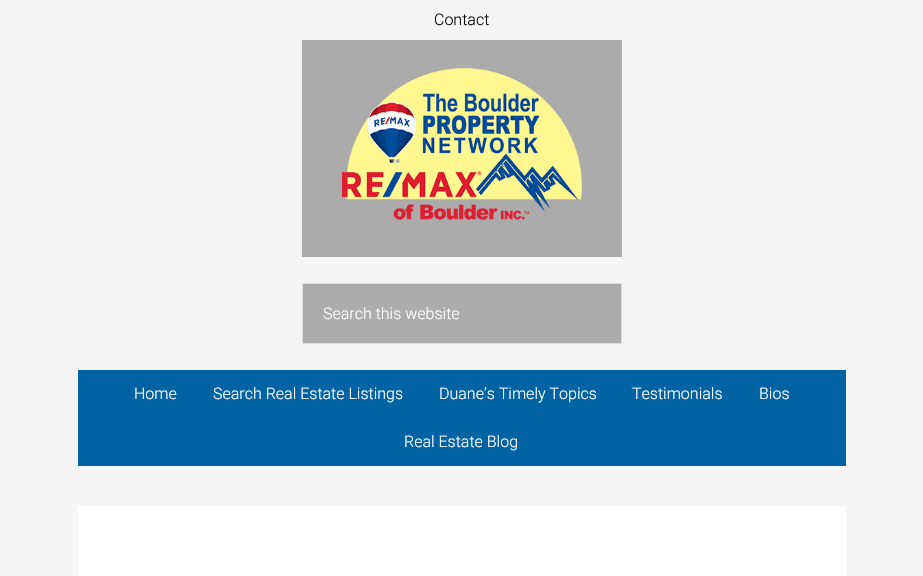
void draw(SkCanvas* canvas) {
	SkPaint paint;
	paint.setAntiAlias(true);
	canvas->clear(0xfff5f5f5);
	SkFont f1(fontMgr->matchFamilyStyle("Roboto", SkFontStyle(300, SkFontStyle::kNormal_Width, SkFontStyle::kUpright_Slant)), 16);
	f1.setSubpixel(true);
	paint.setColor(0xff000000);
	canvas->drawString("Contact", 434, 25, f1, paint);
	paint.setColor(0xffababab);
	canvas->drawRect(SkRect::MakeXYWH(302, 40, 320, 217), paint);
	canvas->drawImageRect(SkImages::DeferredFromEncodedData(SkData::MakeFromFileName("img1.png")), SkRect::MakeXYWH(342, 68, 240, 152), SkSamplingOptions());
	paint.setColor(0xffacacac);
	canvas->drawRect(SkRect::MakeXYWH(302.5, 283.5, 319, 60), paint);
	paint.setStroke(true);
	paint.setStrokeWidth(1);
	paint.setColor(0xffdddddd);
	canvas->drawRect(SkRect::MakeXYWH(302.5, 283.5, 319, 60), paint);
	paint.setStroke(false);
	paint.setColor(0xffffffff);
	canvas->drawString("Search this website", 323, 319, f1, paint);
	paint.setColor(0xff0163a3);
	canvas->drawRect(SkRect::MakeXYWH(78, 370, 768, 96), paint);
	paint.setColor(0xffffffff);
	canvas->drawString("Home", 134, 399, f1, paint);
	canvas->drawString("Search Real Estate Listings", 213, 399, f1, paint);
	canvas->drawString("Duane’s Timely Topics", 439, 399, f1, paint);
	canvas->drawString("Testimonials", 632, 399, f1, paint);
	canvas->drawString("Bios", 759, 399, f1, paint);
	canvas->drawString("Real Estate Blog", 404, 447, f1, paint);
	canvas->drawRect(SkRect::MakeXYWH(78, 506, 768, 70), paint);
}
